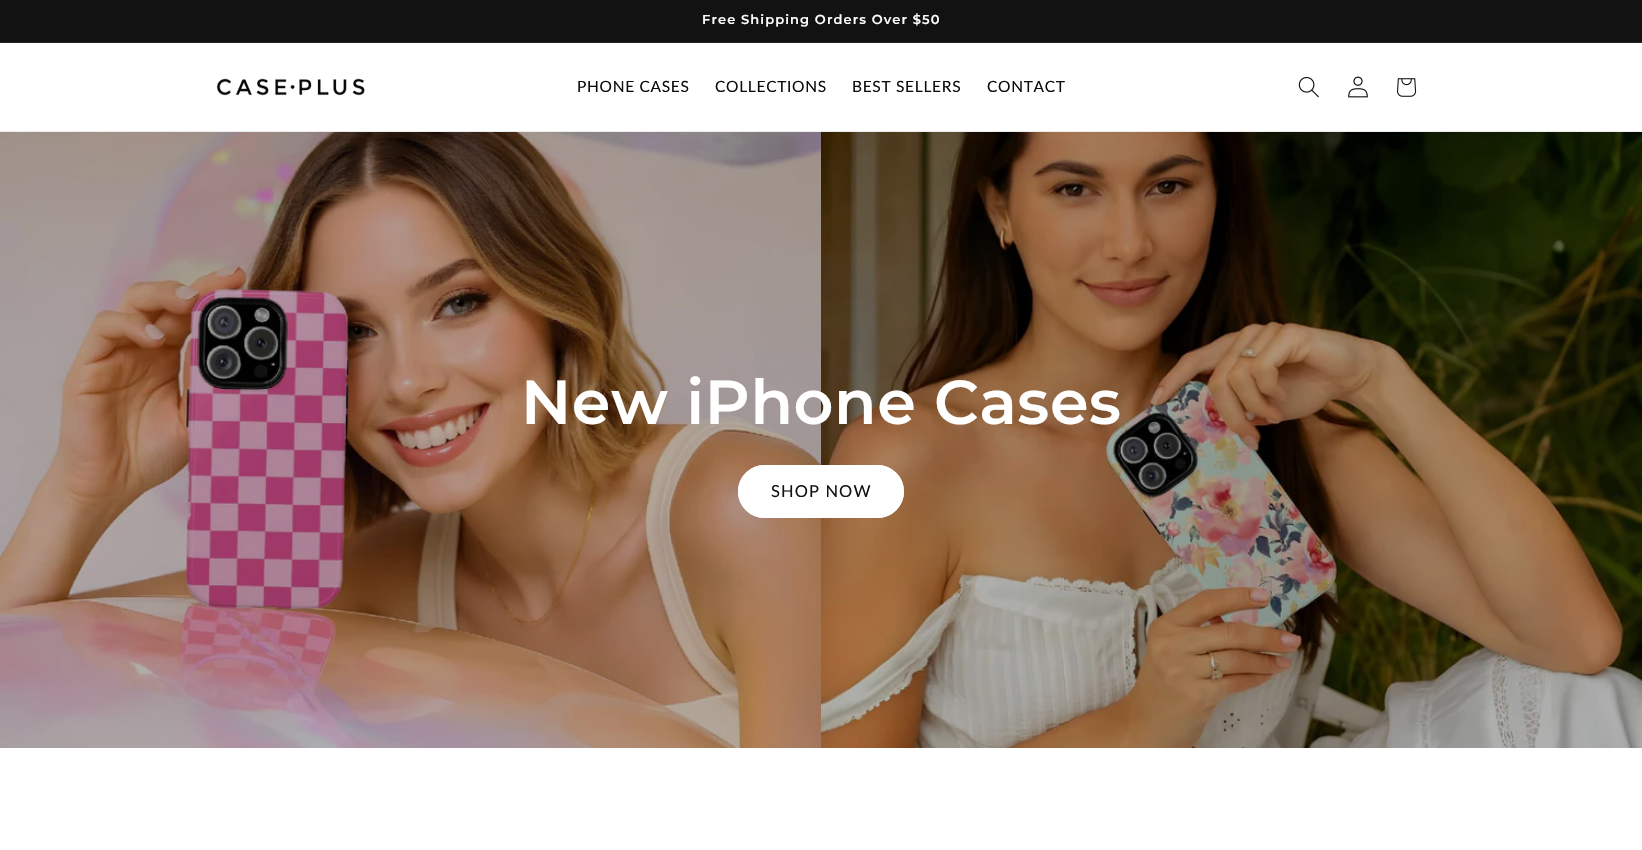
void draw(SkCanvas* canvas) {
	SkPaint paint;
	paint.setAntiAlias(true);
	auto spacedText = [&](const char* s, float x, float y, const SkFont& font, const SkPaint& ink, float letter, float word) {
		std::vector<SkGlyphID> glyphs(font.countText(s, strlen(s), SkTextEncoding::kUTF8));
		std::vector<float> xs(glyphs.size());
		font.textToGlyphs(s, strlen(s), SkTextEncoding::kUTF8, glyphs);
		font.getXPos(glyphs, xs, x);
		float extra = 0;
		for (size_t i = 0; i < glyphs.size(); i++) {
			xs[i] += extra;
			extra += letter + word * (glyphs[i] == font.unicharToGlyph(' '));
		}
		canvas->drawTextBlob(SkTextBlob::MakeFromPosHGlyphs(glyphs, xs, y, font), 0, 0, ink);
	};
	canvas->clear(0xffffffff);
	paint.setColor(0xff121212);
	canvas->drawRect(SkRect::MakeXYWH(0, 0, 1642, 42), paint);
	paint.setColor(0xff252525);
	canvas->drawRect(SkRect::MakeXYWH(0, 42, 1642, 1), paint);
	SkFont f1(fontMgr->matchFamilyStyle("Montserrat", SkFontStyle(600, SkFontStyle::kNormal_Width, SkFontStyle::kUpright_Slant)), 13);
	f1.setSubpixel(true);
	paint.setColor(0xffffffff);
	spacedText("Free Shipping Orders Over $50", 702, 24, f1, paint, 1.1, 0);
	paint.setColor(0xffececec);
	canvas->drawRect(SkRect::MakeXYWH(0, 131, 1642, 1), paint);
	canvas->drawImageRect(SkImages::DeferredFromEncodedData(SkData::MakeFromFileName("img1.png")), SkRect::MakeXYWH(216, 78, 149, 18), SkSamplingOptions());
	SkFont f2(fontMgr->matchFamilyStyle("Lato", SkFontStyle::Normal()), 15.5);
	f2.setSubpixel(true);
	paint.setColor(0xff0c0c0c);
	spacedText("PHONE CASES", 577, 92, f2, paint, 0.7, 0);
	spacedText("COLLECTIONS", 715, 92, f2, paint, 0.7, 0);
	spacedText("BEST SELLERS", 852, 92, f2, paint, 0.7, 0);
	spacedText("CONTACT", 987, 92, f2, paint, 0.7, 0);
	canvas->drawImageRect(SkImages::DeferredFromEncodedData(SkData::MakeFromFileName("img2.png")), SkRect::MakeXYWH(1298, 76, 21, 22), SkSamplingOptions());
	canvas->drawImageRect(SkImages::DeferredFromEncodedData(SkData::MakeFromFileName("img3.png")), SkRect::MakeXYWH(1348, 76, 20, 22), SkSamplingOptions());
	canvas->drawImageRect(SkImages::DeferredFromEncodedData(SkData::MakeFromFileName("img4.png")), SkRect::MakeXYWH(1397, 78, 20, 19), SkSamplingOptions());
	canvas->drawImageRect(SkImages::DeferredFromEncodedData(SkData::MakeFromFileName("img5.png")), SkRect::MakeXYWH(0, 132, 821, 616), SkSamplingOptions());
	canvas->drawImageRect(SkImages::DeferredFromEncodedData(SkData::MakeFromFileName("img6.png")), SkRect::MakeXYWH(821, 132, 821, 616), SkSamplingOptions());
	SkFont f3(fontMgr->matchFamilyStyle("Montserrat", SkFontStyle(600, SkFontStyle::kNormal_Width, SkFontStyle::kUpright_Slant)), 62);
	f3.setSubpixel(true);
	paint.setColor(0xffffffff);
	spacedText("New iPhone Cases", 521, 424, f3, paint, 0.6, 0);
	canvas->drawRoundRect(SkRect::MakeXYWH(738, 465, 166, 53), 26.5, 26.5, paint);
	paint.setStroke(true);
	paint.setStrokeWidth(2);
	canvas->drawRoundRect(SkRect::MakeXYWH(739, 466, 164, 51), 25.5, 25.5, paint);
	SkFont f4(fontMgr->matchFamilyStyle("Lato", SkFontStyle::Normal()), 16.5);
	f4.setSubpixel(true);
	paint.setStroke(false);
	paint.setColor(0xff121212);
	spacedText("SHOP NOW", 771, 497, f4, paint, 1.1, 0);
}
